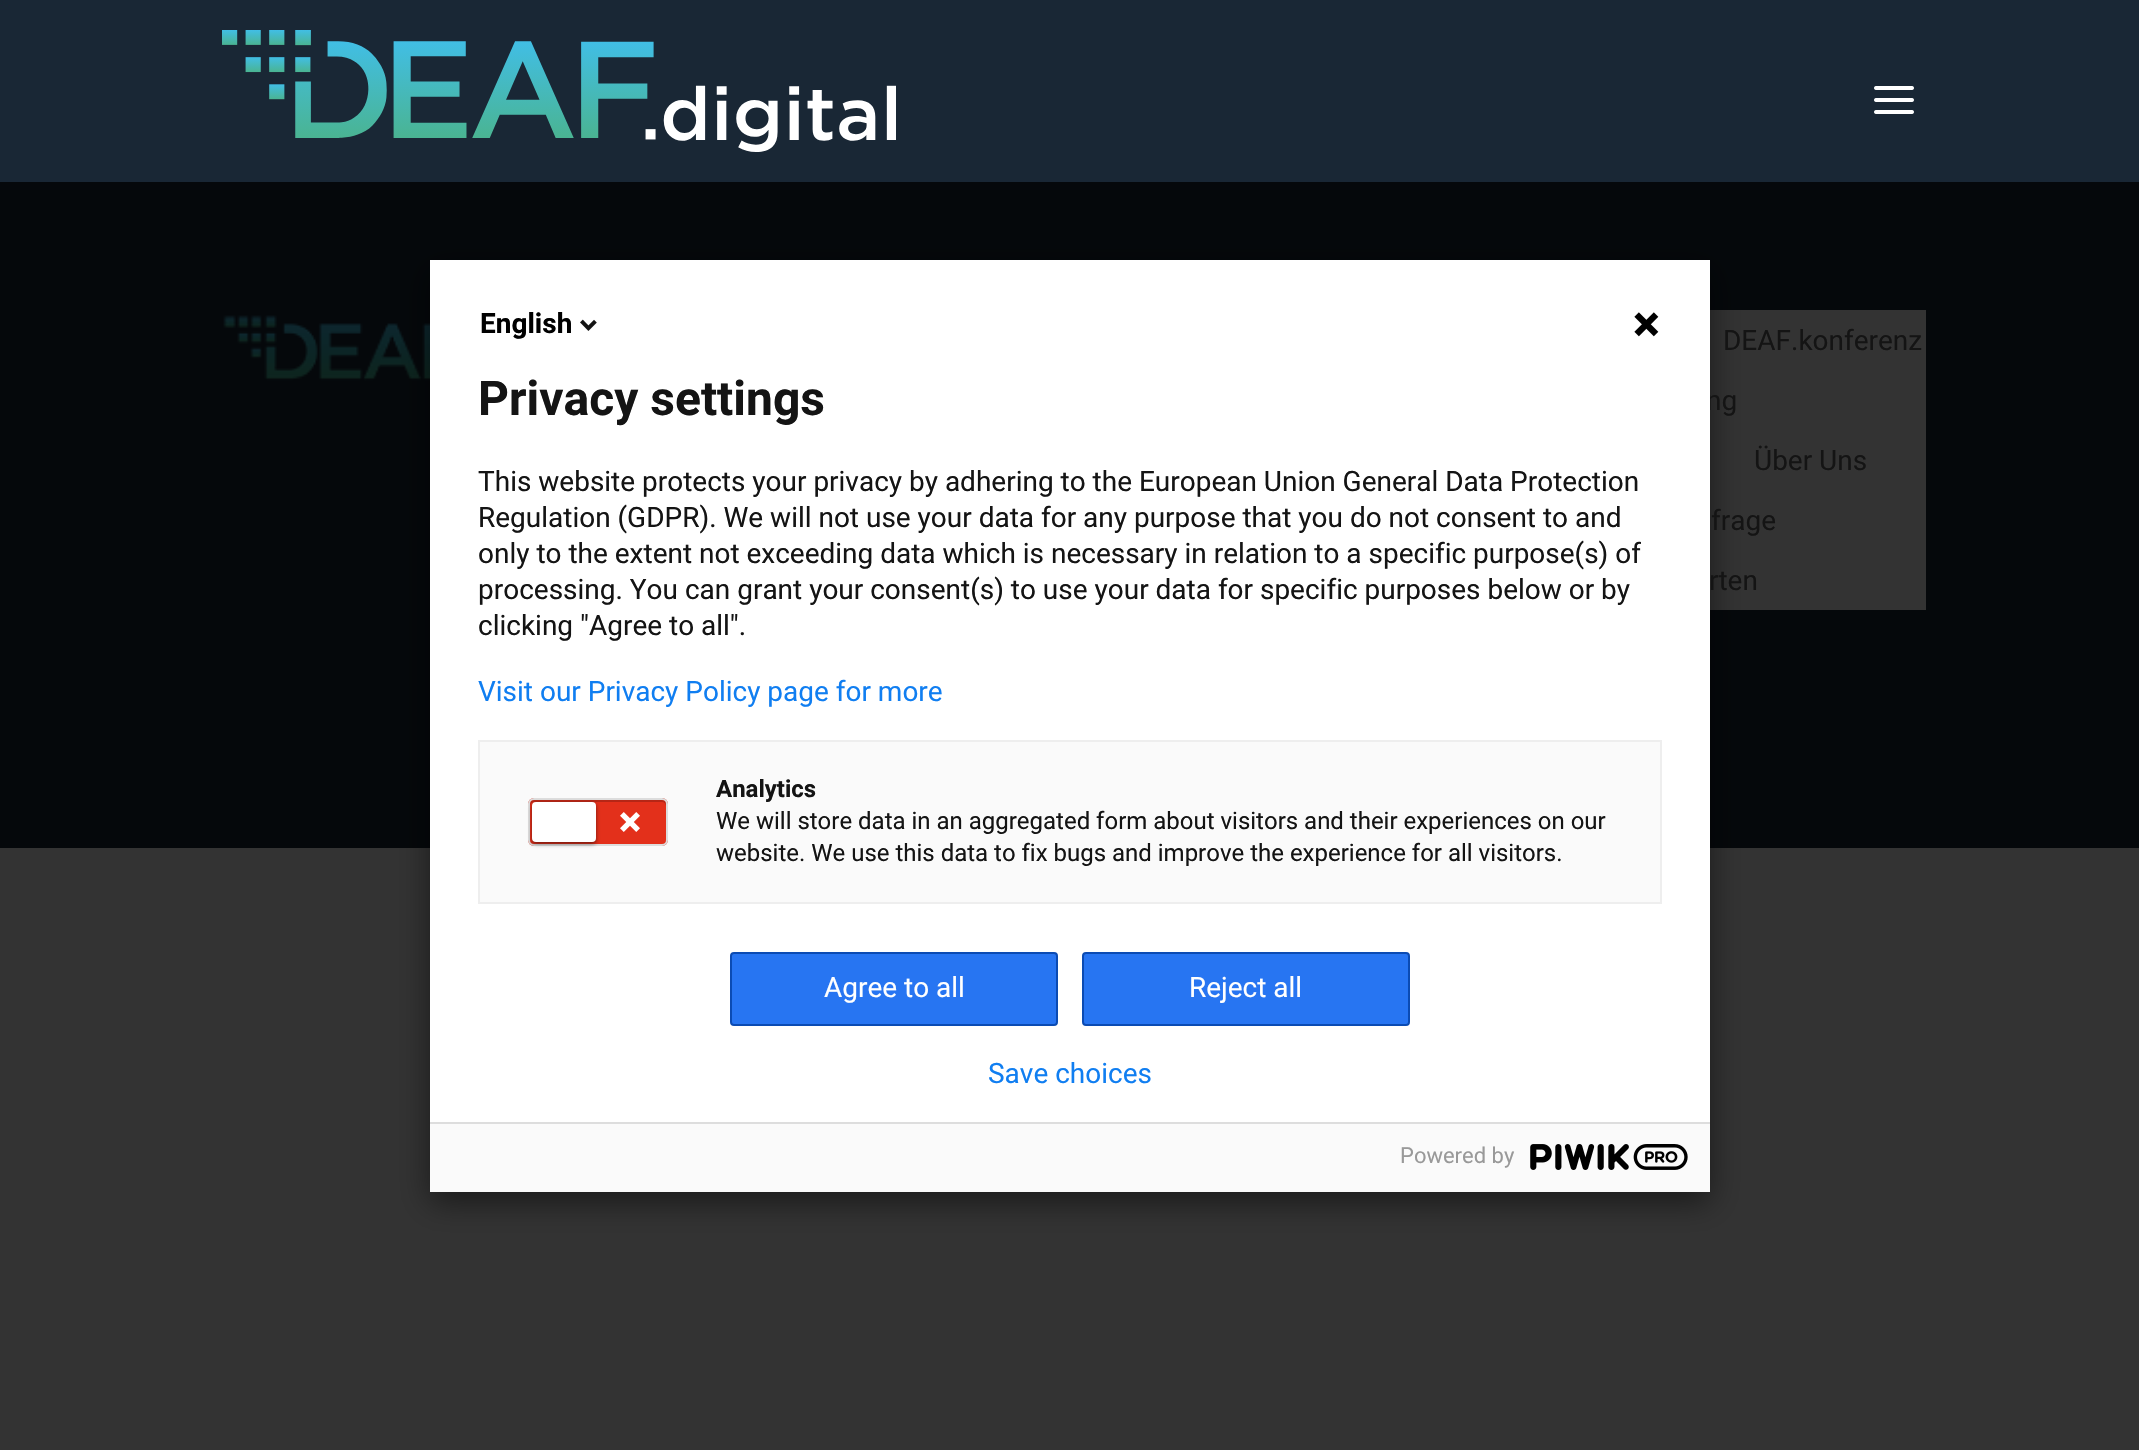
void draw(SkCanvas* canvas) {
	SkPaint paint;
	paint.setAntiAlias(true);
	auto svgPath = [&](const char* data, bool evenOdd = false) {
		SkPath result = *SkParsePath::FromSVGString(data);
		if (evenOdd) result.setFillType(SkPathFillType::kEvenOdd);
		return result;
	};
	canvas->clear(0xff333333);
	paint.setColor(0xff05080b);
	canvas->drawRect(SkRect::MakeXYWH(0, 182, 2139, 666), paint);
	canvas->drawImageRect(SkImages::DeferredFromEncodedData(SkData::MakeFromFileName("img7.png")), SkRect::MakeXYWH(223, 315, 207, 66), SkSamplingOptions());
	paint.setColor(0xff333333);
	canvas->drawRect(SkRect::MakeXYWH(1710, 310, 216, 300), paint);
	paint.setColor(0x80000000);
	paint.setMaskFilter(SkMaskFilter::MakeBlur(kNormal_SkBlurStyle, 15));
	canvas->drawRect(SkRect::MakeXYWH(430, 270, 1280, 932), paint);
	paint.setMaskFilter(nullptr);
	SkFont f1(fontMgr->matchFamilyStyle("Roboto", SkFontStyle::Normal()), 28);
	f1.setSubpixel(true);
	paint.setColor(0xff141414);
	canvas->drawString("ng", 1706, 410, f1, paint);
	paint.setColor(0xffffffff);
	canvas->drawRect(SkRect::MakeXYWH(430, 260, 1280, 862), paint);
	SkFont f2(fontMgr->matchFamilyStyle("Roboto", SkFontStyle::Bold()), 28);
	f2.setSubpixel(true);
	paint.setColor(0xff000000);
	canvas->drawString("English", 480, 333, f2, paint);
	canvas->drawImageRect(SkImages::DeferredFromEncodedData(SkData::MakeFromFileName("img1.png")), SkRect::MakeXYWH(580, 319, 17, 12), SkSamplingOptions());
	canvas->drawImageRect(SkImages::DeferredFromEncodedData(SkData::MakeFromFileName("img2.png")), SkRect::MakeXYWH(1634, 312, 25, 25), SkSamplingOptions());
	SkFont f3(fontMgr->matchFamilyStyle("Roboto", SkFontStyle::Bold()), 48);
	f3.setSubpixel(true);
	paint.setColor(0xff141414);
	canvas->drawString("Privacy settings", 478, 415, f3, paint);
	canvas->drawString("This website protects your privacy by adhering to the European Union General Data Protection", 478, 491, f1, paint);
	canvas->drawString("Regulation (GDPR). We will not use your data for any purpose that you do not consent to and", 478, 527, f1, paint);
	canvas->drawString("only to the extent not exceeding data which is necessary in relation to a specific purpose(s) of", 478, 563, f1, paint);
	canvas->drawString("processing. You can grant your consent(s) to use your data for specific purposes below or by", 478, 599, f1, paint);
	canvas->drawString("clicking \"Agree to all\".", 478, 635, f1, paint);
	paint.setColor(0xff107ef1);
	canvas->drawString("Visit our Privacy Policy page for more", 478, 701, f1, paint);
	paint.setColor(0xfffafafa);
	canvas->drawRect(SkRect::MakeXYWH(479, 741, 1182, 162), paint);
	paint.setStroke(true);
	paint.setStrokeWidth(2);
	paint.setColor(0xffeeeeee);
	canvas->drawRect(SkRect::MakeXYWH(479, 741, 1182, 162), paint);
	paint.setStroke(false);
	paint.setColor(0xffe3301b);
	canvas->drawRoundRect(SkRect::MakeXYWH(528, 798, 140, 48), 6, 6, paint);
	paint.setColor(0xffb62616);
	canvas->drawPath(svgPath("M534 802H662C664 802 666 804 666 806V804C666 802 664 800 662 800H534C532 800 530 802 530 804V806C530 804 532 802 534 802Z"), paint);
	paint.setStroke(true);
	paint.setColor(0xffdddddd);
	canvas->drawRoundRect(SkRect::MakeXYWH(529, 799, 138, 46), 5, 5, paint);
	paint.setStroke(false);
	paint.setColor(0x80000000);
	paint.setMaskFilter(SkMaskFilter::MakeBlur(kNormal_SkBlurStyle, 2));
	canvas->drawRoundRect(SkRect::MakeXYWH(532, 804, 64, 40), 4, 4, paint);
	paint.setMaskFilter(nullptr);
	paint.setColor(0xffffffff);
	canvas->drawRoundRect(SkRect::MakeXYWH(532, 802, 64, 40), 4, 4, paint);
	canvas->drawImageRect(SkImages::DeferredFromEncodedData(SkData::MakeFromFileName("img3.png")), SkRect::MakeXYWH(620, 812, 20, 20), SkSamplingOptions());
	SkFont f4(fontMgr->matchFamilyStyle("Roboto", SkFontStyle::Bold()), 24);
	f4.setSubpixel(true);
	paint.setColor(0xff141414);
	canvas->drawString("Analytics", 716, 797, f4, paint);
	SkFont f5(fontMgr->matchFamilyStyle("Roboto", SkFontStyle::Normal()), 24);
	f5.setSubpixel(true);
	canvas->drawString("We will store data in an aggregated form about visitors and their experiences on our", 716, 829, f5, paint);
	canvas->drawString("website. We use this data to fix bugs and improve the experience for all visitors.", 716, 861, f5, paint);
	paint.setColor(0xff2775f2);
	canvas->drawRoundRect(SkRect::MakeXYWH(731, 953, 326, 72), 3, 3, paint);
	paint.setStroke(true);
	paint.setColor(0xff0b4bb3);
	canvas->drawRoundRect(SkRect::MakeXYWH(731, 953, 326, 72), 3, 3, paint);
	paint.setStroke(false);
	paint.setColor(0xffffffff);
	canvas->drawString("Agree to all", 824, 997, f1, paint);
	paint.setColor(0xff2775f2);
	canvas->drawRoundRect(SkRect::MakeXYWH(1083, 953, 326, 72), 3, 3, paint);
	paint.setStroke(true);
	paint.setColor(0xff0b4bb3);
	canvas->drawRoundRect(SkRect::MakeXYWH(1083, 953, 326, 72), 3, 3, paint);
	paint.setStroke(false);
	paint.setColor(0xffffffff);
	canvas->drawString("Reject all", 1189, 997, f1, paint);
	paint.setColor(0xff107ef1);
	canvas->drawString("Save choices", 988, 1083, f1, paint);
	paint.setColor(0xfffafafa);
	canvas->drawRect(SkRect::MakeXYWH(430, 1124, 1280, 68), paint);
	paint.setColor(0xffdddddd);
	canvas->drawRect(SkRect::MakeXYWH(430, 1122, 1280, 2), paint);
	SkFont f6(fontMgr->matchFamilyStyle("Roboto", SkFontStyle::Normal()), 22);
	f6.setSubpixel(true);
	paint.setColor(0xff999999);
	canvas->drawString("Powered by", 1400, 1163, f6, paint);
	canvas->drawImageRect(SkImages::DeferredFromEncodedData(SkData::MakeFromFileName("img4.png")), SkRect::MakeXYWH(1530, 1144, 158, 26), SkSamplingOptions());
	paint.setColor(0xff192735);
	canvas->drawRect(SkRect::MakeXYWH(0, 0, 2139, 182), paint);
	canvas->drawImageRect(SkImages::DeferredFromEncodedData(SkData::MakeFromFileName("img5.png")), SkRect::MakeXYWH(222, 30, 674, 122), SkSamplingOptions());
	canvas->drawImageRect(SkImages::DeferredFromEncodedData(SkData::MakeFromFileName("img6.png")), SkRect::MakeXYWH(1874, 86, 40, 28), SkSamplingOptions());
	paint.setColor(0xff141414);
	canvas->drawString("DEAF.konferenz", 1723, 350, f1, paint);
	canvas->drawString("Über Uns", 1754, 470, f1, paint);
	canvas->drawString("frage", 1711, 530, f1, paint);
	canvas->drawString("rten", 1709, 590, f1, paint);
}
